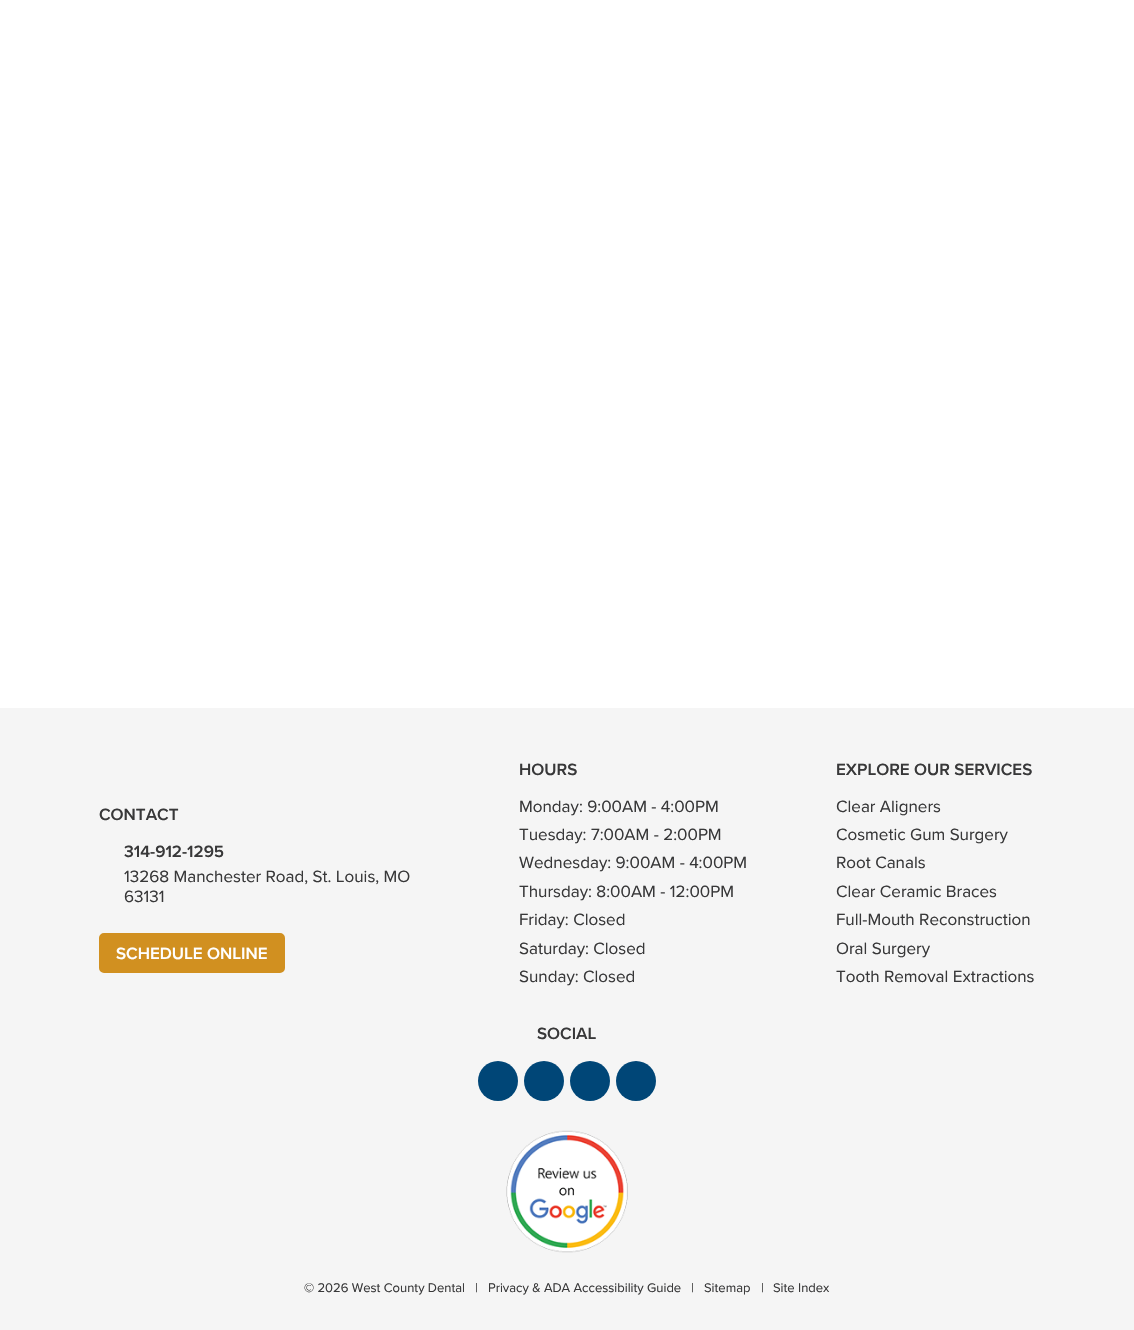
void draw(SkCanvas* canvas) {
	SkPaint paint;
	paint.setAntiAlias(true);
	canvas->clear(0xffffffff);
	paint.setColor(0xfff5f5f5);
	canvas->drawRect(SkRect::MakeXYWH(0, 708, 1134, 622), paint);
	SkFont f1(fontMgr->matchFamilyStyle("Proxima Nova", SkFontStyle(600, SkFontStyle::kNormal_Width, SkFontStyle::kUpright_Slant)), 17);
	f1.setSubpixel(true);
	paint.setColor(0xff383839);
	canvas->drawString("CONTACT", 99, 820, f1, paint);
	canvas->drawString("314-912-1295", 124, 857, f1, paint);
	SkFont f2(fontMgr->matchFamilyStyle("Proxima Nova", SkFontStyle::Normal()), 17);
	f2.setSubpixel(true);
	canvas->drawString("13268 Manchester Road, St. Louis, MO", 124, 882, f2, paint);
	canvas->drawString("63131", 124, 902, f2, paint);
	paint.setColor(0xffd19020);
	canvas->drawRoundRect(SkRect::MakeXYWH(100, 934, 184, 38), 4, 4, paint);
	paint.setStroke(true);
	paint.setStrokeWidth(2);
	canvas->drawRoundRect(SkRect::MakeXYWH(100, 934, 184, 38), 4, 4, paint);
	paint.setStroke(false);
	paint.setColor(0xffffffff);
	canvas->drawString("SCHEDULE ONLINE", 116, 959, f1, paint);
	paint.setColor(0xff383839);
	canvas->drawString("HOURS", 519, 775, f1, paint);
	canvas->drawString("Monday: 9:00AM - 4:00PM", 519, 812, f2, paint);
	canvas->drawString("Tuesday: 7:00AM - 2:00PM", 519, 840, f2, paint);
	canvas->drawString("Wednesday: 9:00AM - 4:00PM", 519, 868, f2, paint);
	canvas->drawString("Thursday: 8:00AM - 12:00PM", 519, 897, f2, paint);
	canvas->drawString("Friday: Closed", 519, 925, f2, paint);
	canvas->drawString("Saturday: Closed", 519, 954, f2, paint);
	canvas->drawString("Sunday: Closed", 519, 982, f2, paint);
	canvas->drawString("EXPLORE OUR SERVICES", 836, 775, f1, paint);
	canvas->drawString("Clear Aligners", 836, 812, f2, paint);
	canvas->drawString("Cosmetic Gum Surgery", 836, 840, f2, paint);
	canvas->drawString("Root Canals", 836, 868, f2, paint);
	canvas->drawString("Clear Ceramic Braces", 836, 897, f2, paint);
	canvas->drawString("Full-Mouth Reconstruction", 836, 925, f2, paint);
	canvas->drawString("Oral Surgery", 836, 954, f2, paint);
	canvas->drawString("Tooth Removal Extractions", 836, 982, f2, paint);
	canvas->drawString("SOCIAL", 537, 1039, f1, paint);
	paint.setColor(0xff004677);
	canvas->drawCircle(498, 1081, 20, paint);
	canvas->drawCircle(544, 1081, 20, paint);
	canvas->drawCircle(590, 1081, 20, paint);
	canvas->drawCircle(636, 1081, 20, paint);
	canvas->drawImageRect(SkImages::DeferredFromEncodedData(SkData::MakeFromFileName("img1.png")), SkRect::MakeXYWH(506, 1130, 122, 123), SkSamplingOptions());
	SkFont f3(fontMgr->matchFamilyStyle("Proxima Nova", SkFontStyle::Normal()), 13);
	f3.setSubpixel(true);
	paint.setColor(0xff383839);
	canvas->drawString("© 2026 West County Dental", 304, 1292, f3, paint);
	canvas->drawString("|", 475, 1292, f3, paint);
	canvas->drawString("Privacy & ADA Accessibility Guide", 488, 1292, f3, paint);
	canvas->drawString("|", 691, 1292, f3, paint);
	canvas->drawString("Sitemap", 704, 1292, f3, paint);
	canvas->drawString("|", 761, 1292, f3, paint);
	canvas->drawString("Site Index", 773, 1292, f3, paint);
}
